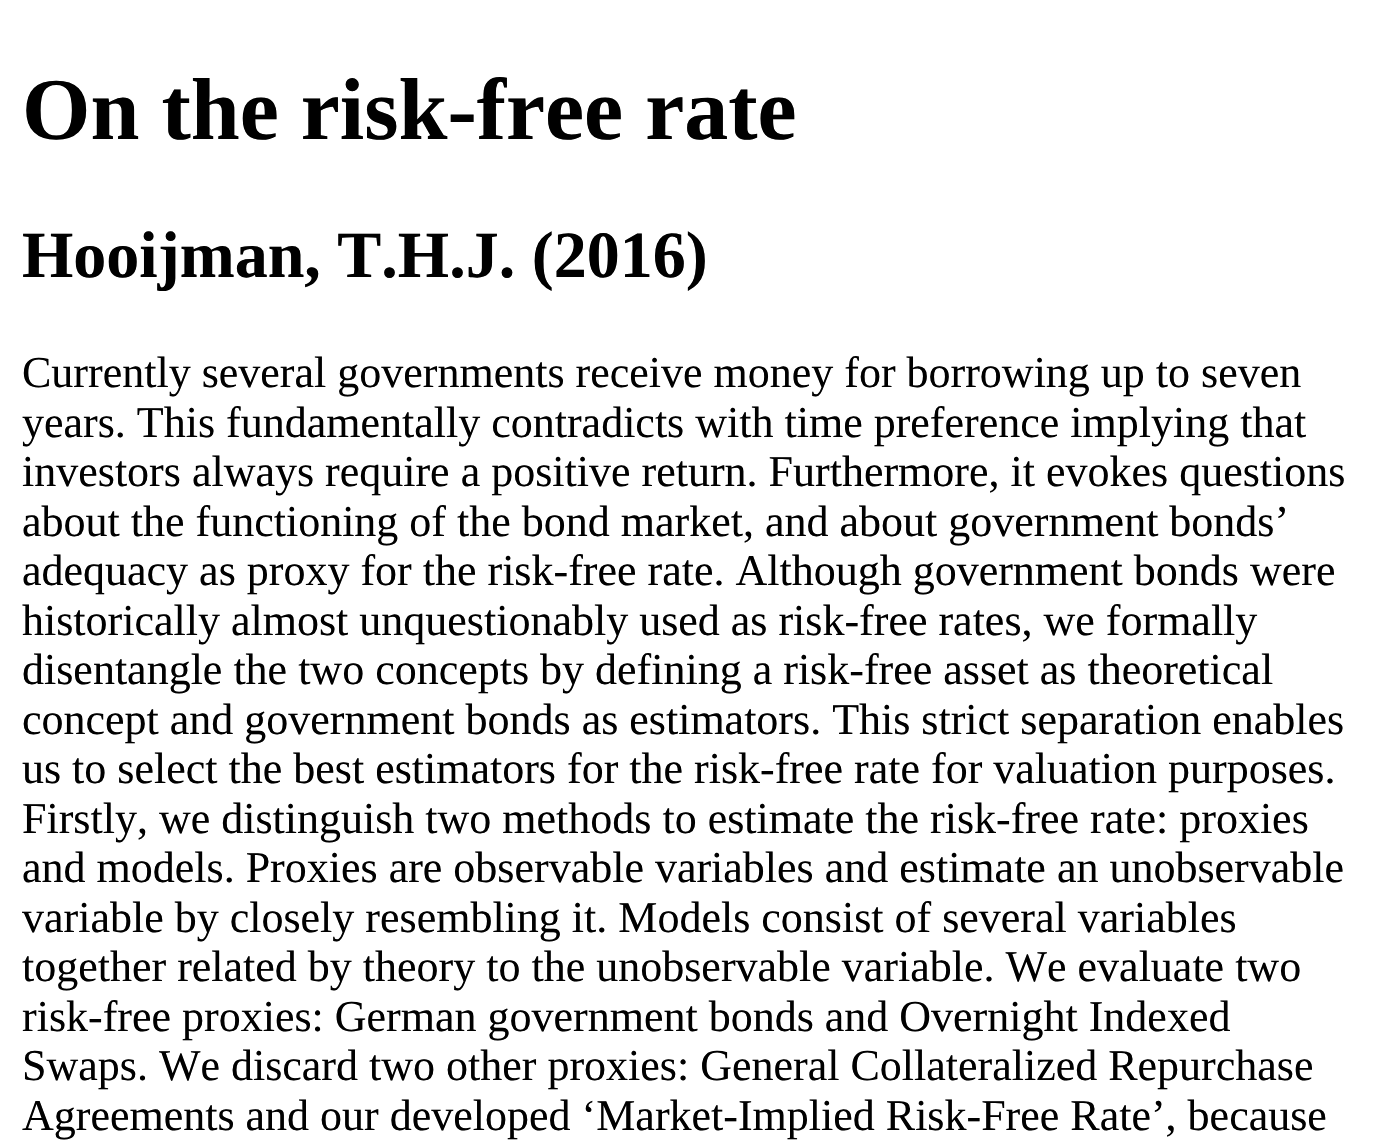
void draw(SkCanvas* canvas) {
	SkPaint paint;
	paint.setAntiAlias(true);
	canvas->clear(0xffffffff);
	SkFont f1(fontMgr->matchFamilyStyle("Liberation Serif", SkFontStyle::Bold()), 88);
	f1.setSubpixel(true);
	paint.setColor(0xff000000);
	canvas->drawString("On the risk-free rate", 22, 139, f1, paint);
	SkFont f2(fontMgr->matchFamilyStyle("Liberation Serif", SkFontStyle::Bold()), 66);
	f2.setSubpixel(true);
	canvas->drawString("Hooijman, T.H.J. (2016)", 22, 277, f2, paint);
	SkFont f3(fontMgr->matchFamilyStyle("Liberation Serif", SkFontStyle::Normal()), 44);
	f3.setSubpixel(true);
	canvas->drawString("Currently several governments receive money for borrowing up to seven", 22, 387, f3, paint);
	canvas->drawString("years. This fundamentally contradicts with time preference implying that", 22, 437, f3, paint);
	canvas->drawString("investors always require a positive return. Furthermore, it evokes questions", 22, 486, f3, paint);
	canvas->drawString("about the functioning of the bond market, and about government bonds’", 22, 536, f3, paint);
	canvas->drawString("adequacy as proxy for the risk-free rate. Although government bonds were", 22, 585, f3, paint);
	canvas->drawString("historically almost unquestionably used as risk-free rates, we formally", 22, 635, f3, paint);
	canvas->drawString("disentangle the two concepts by defining a risk-free asset as theoretical", 22, 684, f3, paint);
	canvas->drawString("concept and government bonds as estimators. This strict separation enables", 22, 734, f3, paint);
	canvas->drawString("us to select the best estimators for the risk-free rate for valuation purposes.", 22, 783, f3, paint);
	canvas->drawString("Firstly, we distinguish two methods to estimate the risk-free rate: proxies", 22, 833, f3, paint);
	canvas->drawString("and models. Proxies are observable variables and estimate an unobservable", 22, 882, f3, paint);
	canvas->drawString("variable by closely resembling it. Models consist of several variables", 22, 932, f3, paint);
	canvas->drawString("together related by theory to the unobservable variable. We evaluate two", 22, 981, f3, paint);
	canvas->drawString("risk-free proxies: German government bonds and Overnight Indexed", 22, 1031, f3, paint);
	canvas->drawString("Swaps. We discard two other proxies: General Collateralized Repurchase", 22, 1080, f3, paint);
	canvas->drawString("Agreements and our developed ‘Market-Implied Risk-Free Rate’, because", 22, 1130, f3, paint);
}
